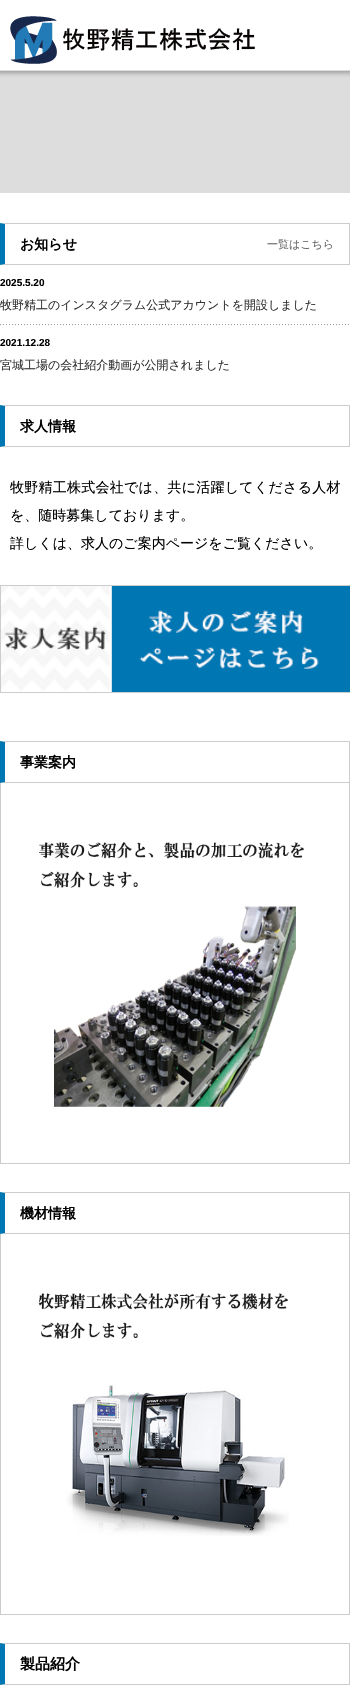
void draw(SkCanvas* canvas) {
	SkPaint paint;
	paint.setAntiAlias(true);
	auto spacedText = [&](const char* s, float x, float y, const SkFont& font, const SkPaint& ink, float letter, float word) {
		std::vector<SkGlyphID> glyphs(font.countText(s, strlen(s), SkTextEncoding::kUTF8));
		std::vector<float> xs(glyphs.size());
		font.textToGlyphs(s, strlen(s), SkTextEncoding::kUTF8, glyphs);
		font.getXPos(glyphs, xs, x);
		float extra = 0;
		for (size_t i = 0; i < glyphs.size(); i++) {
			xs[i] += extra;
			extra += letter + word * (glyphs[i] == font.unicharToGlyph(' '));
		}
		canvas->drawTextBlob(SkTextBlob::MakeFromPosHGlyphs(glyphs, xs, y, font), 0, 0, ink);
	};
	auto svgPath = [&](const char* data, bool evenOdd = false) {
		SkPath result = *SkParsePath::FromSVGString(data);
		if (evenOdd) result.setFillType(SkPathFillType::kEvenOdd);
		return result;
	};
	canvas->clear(0xffffffff);
	paint.setColor(0xffdddddd);
	canvas->drawRect(SkRect::MakeXYWH(0, 70, 350, 1), paint);
	canvas->drawImageRect(SkImages::DeferredFromEncodedData(SkData::MakeFromFileName("img1.png")), SkRect::MakeXYWH(10, 16, 245, 48), SkSamplingOptions());
	canvas->drawImageRect(SkImages::DeferredFromEncodedData(SkData::MakeFromFileName("img2.png")), SkRect::MakeXYWH(0, 71, 350, 122), SkSamplingOptions());
	paint.setColor(0xffcccccc);
	canvas->drawPath(svgPath("M0 223H350L349 224H5Z"), paint);
	canvas->drawRect(SkRect::MakeXYWH(349, 223, 1, 42), paint);
	canvas->drawPath(svgPath("M350 265H0L5 264H349Z"), paint);
	paint.setColor(0xff0077b3);
	canvas->drawPath(svgPath("M0 265V223L5 224V264Z"), paint);
	SkFont f1(fontMgr->matchFamilyStyle("WenQuanYi Zen Hei", SkFontStyle::Bold()), 14);
	f1.setSubpixel(true);
	paint.setColor(0xff000000);
	canvas->drawString("お知らせ", 20, 249, f1, paint);
	SkFont f2(fontMgr->matchFamilyStyle("WenQuanYi Zen Hei", SkFontStyle(500, SkFontStyle::kNormal_Width, SkFontStyle::kUpright_Slant)), 11);
	f2.setSubpixel(true);
	paint.setColor(0xff666666);
	canvas->drawString("一覧はこちら", 267, 248, f2, paint);
	canvas->drawImageRect(SkImages::DeferredFromEncodedData(SkData::MakeFromFileName("img3.png")), SkRect::MakeXYWH(0, 324, 349, 1), SkSamplingOptions());
	SkFont f3(fontMgr->matchFamilyStyle("Liberation Sans", SkFontStyle::Bold()), 10);
	f3.setSubpixel(true);
	paint.setColor(0xff000000);
	canvas->drawString("2025.5.20", 0, 286, f3, paint);
	SkFont f4(fontMgr->matchFamilyStyle("WenQuanYi Zen Hei", SkFontStyle(500, SkFontStyle::kNormal_Width, SkFontStyle::kUpright_Slant)), 12);
	f4.setSubpixel(true);
	paint.setColor(0xff333333);
	canvas->drawString("牧野精工のインスタグラム公式アカウントを開設しました", 0, 309, f4, paint);
	paint.setColor(0xff000000);
	canvas->drawString("2021.12.28", 0, 346, f3, paint);
	paint.setColor(0xff333333);
	canvas->drawString("宮城工場の会社紹介動画が公開されました", 0, 369, f4, paint);
	paint.setColor(0xffcccccc);
	canvas->drawPath(svgPath("M0 405H350L349 406H5Z"), paint);
	canvas->drawRect(SkRect::MakeXYWH(349, 405, 1, 42), paint);
	canvas->drawPath(svgPath("M350 447H0L5 446H349Z"), paint);
	paint.setColor(0xff0077b3);
	canvas->drawPath(svgPath("M0 447V405L5 406V446Z"), paint);
	paint.setColor(0xff000000);
	canvas->drawString("求人情報", 20, 431, f1, paint);
	SkFont f5(fontMgr->matchFamilyStyle("WenQuanYi Zen Hei", SkFontStyle(500, SkFontStyle::kNormal_Width, SkFontStyle::kUpright_Slant)), 14);
	f5.setSubpixel(true);
	spacedText("牧野精工株式会社では、共に活躍してくださる人材", 10, 492, f5, paint, 0.25, 0);
	canvas->drawString("を、随時募集しております。", 10, 520, f5, paint);
	canvas->drawString("詳しくは、求人のご案内ページをご覧ください。", 10, 548, f5, paint);
	paint.setStroke(true);
	paint.setStrokeWidth(1);
	paint.setColor(0xffcbcccc);
	canvas->drawRect(SkRect::MakeXYWH(0.5, 585.5, 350, 107), paint);
	canvas->drawImageRect(SkImages::DeferredFromEncodedData(SkData::MakeFromFileName("img4.png")), SkRect::MakeXYWH(1, 586, 349, 106), SkSamplingOptions());
	paint.setStroke(false);
	paint.setColor(0xffcccccc);
	canvas->drawPath(svgPath("M0 741H350L349 742H5Z"), paint);
	canvas->drawRect(SkRect::MakeXYWH(349, 741, 1, 42), paint);
	canvas->drawPath(svgPath("M350 783H0L5 782H349Z"), paint);
	paint.setColor(0xff0077b3);
	canvas->drawPath(svgPath("M0 783V741L5 742V782Z"), paint);
	paint.setColor(0xff000000);
	canvas->drawString("事業案内", 20, 767, f1, paint);
	paint.setColor(0xffcbcccc);
	canvas->drawRect(SkRect::MakeXYWH(349, 783, 1, 381), paint);
	canvas->drawRect(SkRect::MakeXYWH(0, 1163, 350, 1), paint);
	canvas->drawRect(SkRect::MakeXYWH(0, 783, 1, 381), paint);
	canvas->drawImageRect(SkImages::DeferredFromEncodedData(SkData::MakeFromFileName("img5.png")), SkRect::MakeXYWH(39, 842, 265, 265), SkSamplingOptions());
	paint.setColor(0xffcccccc);
	canvas->drawPath(svgPath("M0 1192H350L349 1193H5Z"), paint);
	canvas->drawRect(SkRect::MakeXYWH(349, 1192, 1, 42), paint);
	canvas->drawPath(svgPath("M350 1234H0L5 1233H349Z"), paint);
	paint.setColor(0xff0077b3);
	canvas->drawPath(svgPath("M0 1234V1192L5 1193V1233Z"), paint);
	paint.setColor(0xff000000);
	canvas->drawString("機材情報", 20, 1218, f1, paint);
	paint.setColor(0xffcbcccc);
	canvas->drawRect(SkRect::MakeXYWH(349, 1234, 1, 381), paint);
	canvas->drawRect(SkRect::MakeXYWH(0, 1614, 350, 1), paint);
	canvas->drawRect(SkRect::MakeXYWH(0, 1234, 1, 381), paint);
	canvas->drawImageRect(SkImages::DeferredFromEncodedData(SkData::MakeFromFileName("img6.png")), SkRect::MakeXYWH(38, 1293, 251, 243), SkSamplingOptions());
	paint.setColor(0xffcccccc);
	canvas->drawPath(svgPath("M0 1643H350L349 1644H5Z"), paint);
	canvas->drawRect(SkRect::MakeXYWH(349, 1643, 1, 42), paint);
	canvas->drawPath(svgPath("M350 1685H0L5 1684H349Z"), paint);
	paint.setColor(0xff0077b3);
	canvas->drawPath(svgPath("M0 1685V1643L5 1644V1684Z"), paint);
	SkFont f6(fontMgr->matchFamilyStyle("WenQuanYi Zen Hei", SkFontStyle::Bold()), 15);
	f6.setSubpixel(true);
	paint.setColor(0xff000000);
	canvas->drawString("製品紹介", 20, 1669, f6, paint);
}
